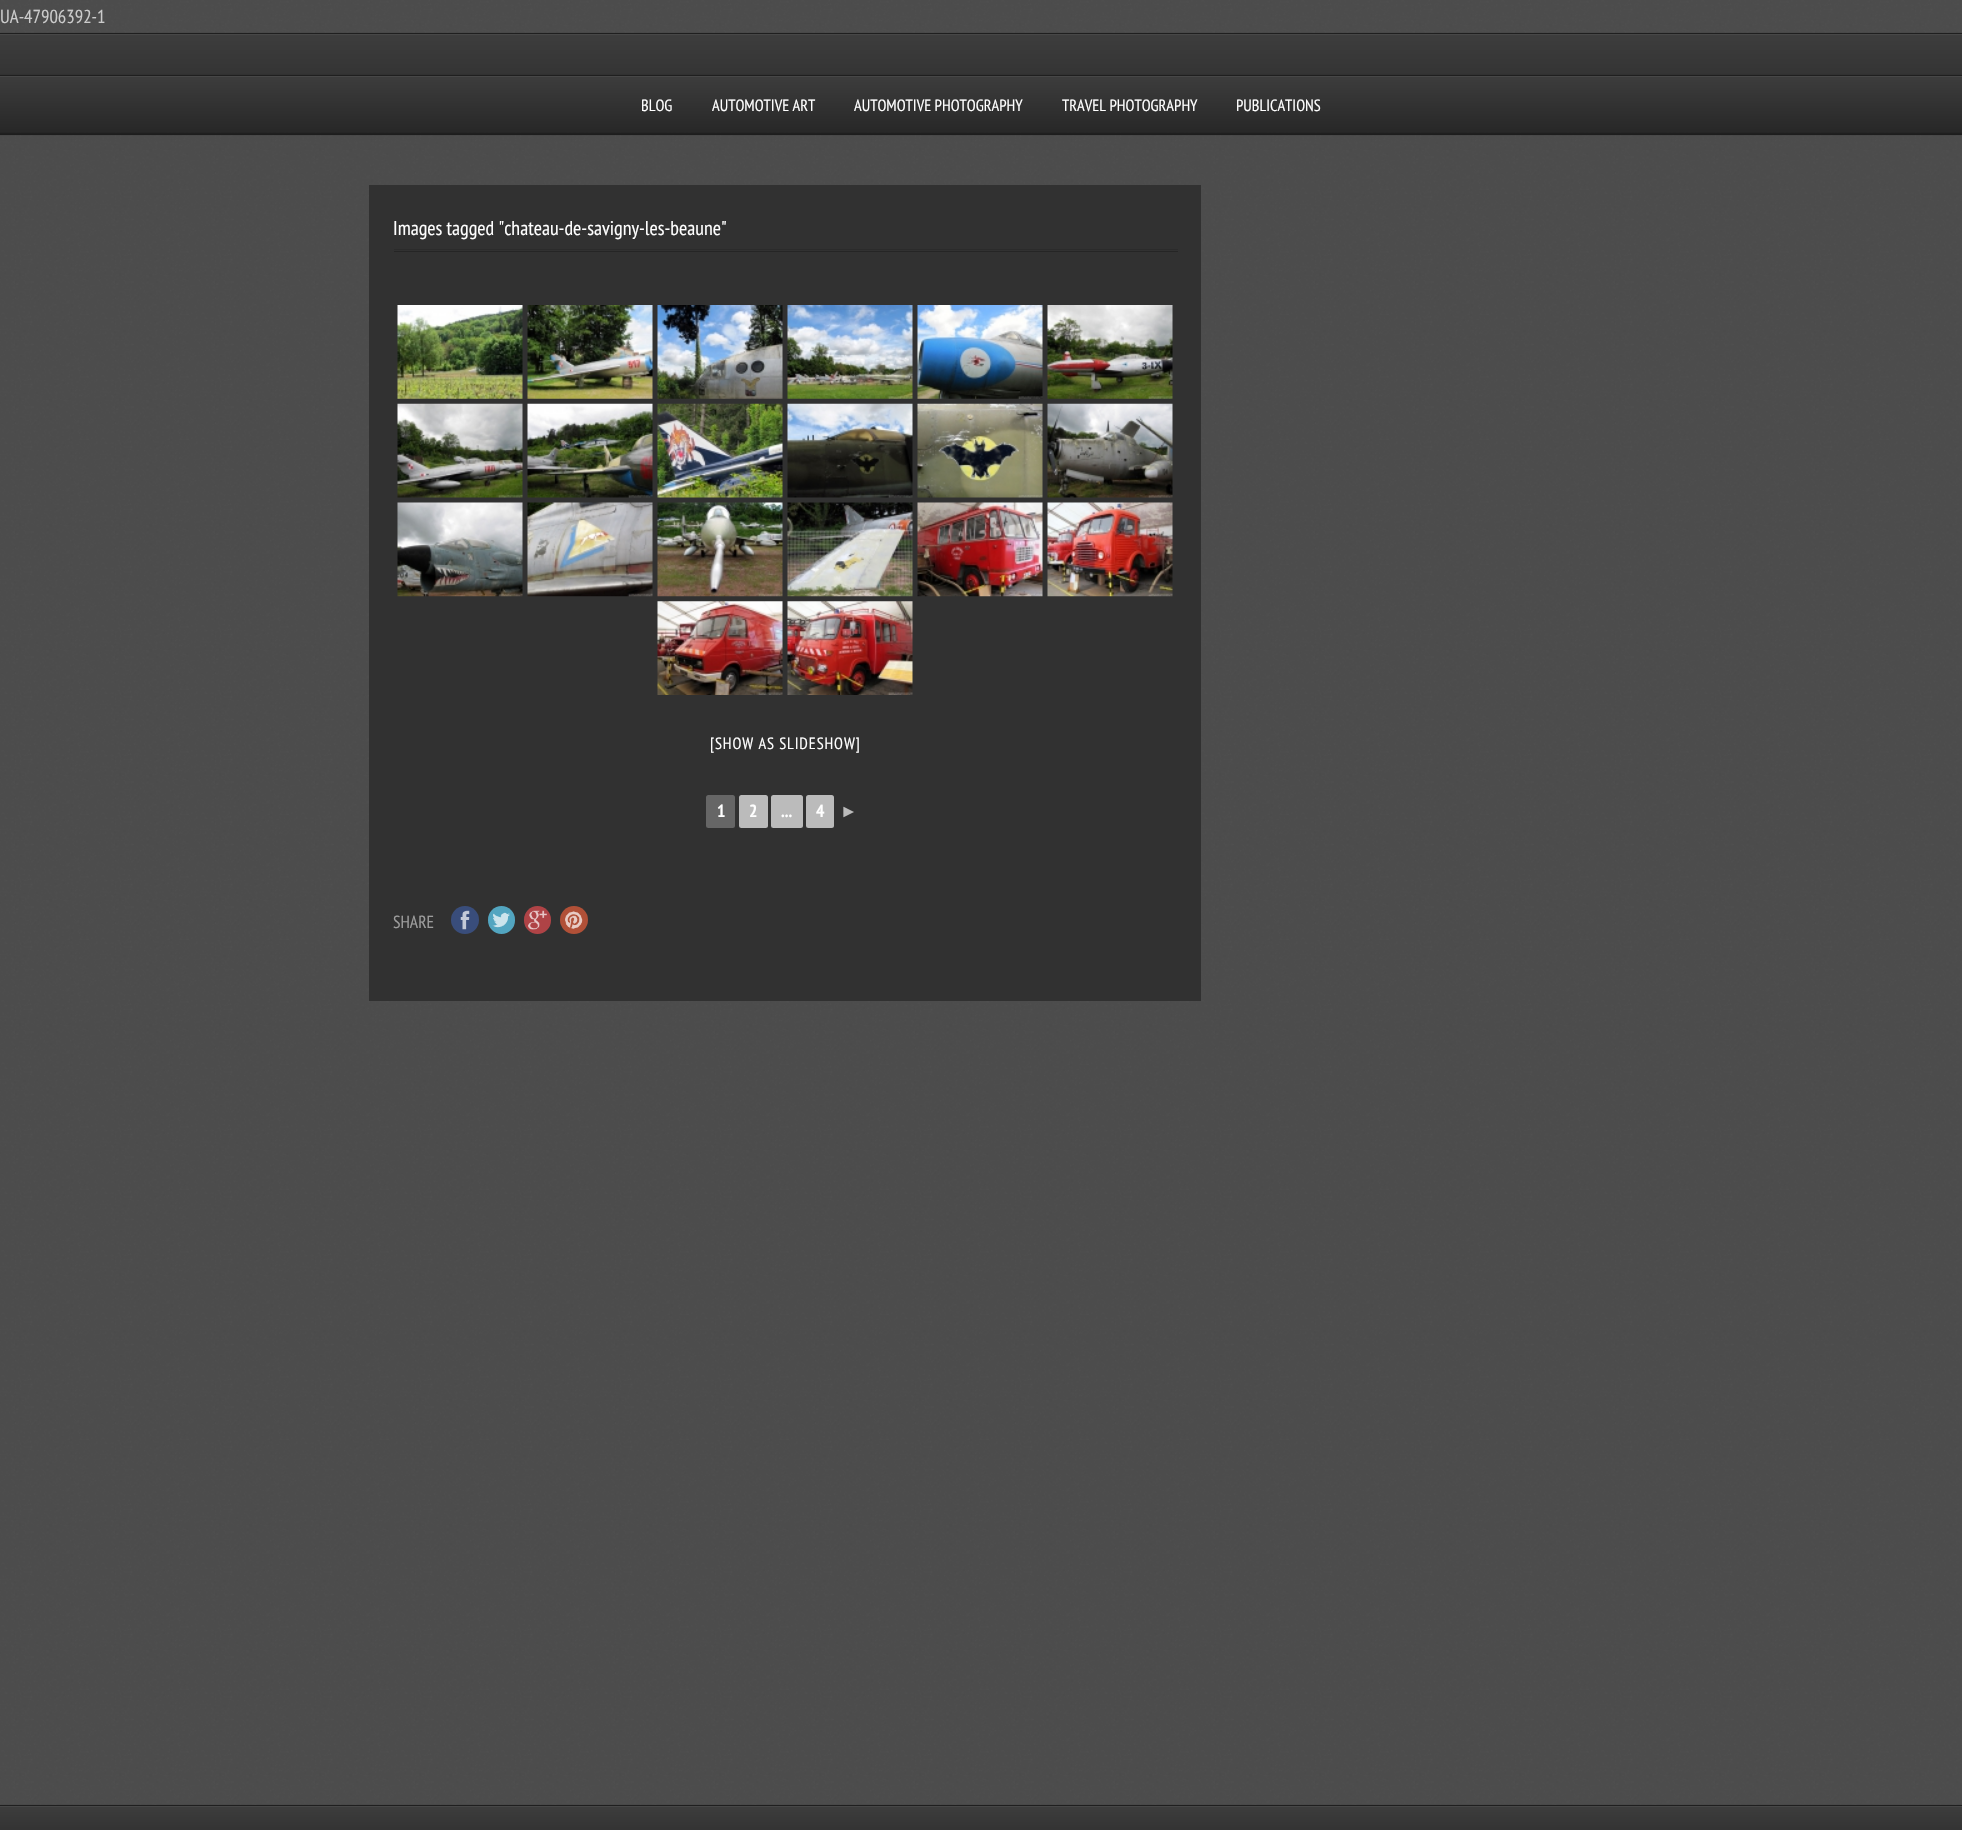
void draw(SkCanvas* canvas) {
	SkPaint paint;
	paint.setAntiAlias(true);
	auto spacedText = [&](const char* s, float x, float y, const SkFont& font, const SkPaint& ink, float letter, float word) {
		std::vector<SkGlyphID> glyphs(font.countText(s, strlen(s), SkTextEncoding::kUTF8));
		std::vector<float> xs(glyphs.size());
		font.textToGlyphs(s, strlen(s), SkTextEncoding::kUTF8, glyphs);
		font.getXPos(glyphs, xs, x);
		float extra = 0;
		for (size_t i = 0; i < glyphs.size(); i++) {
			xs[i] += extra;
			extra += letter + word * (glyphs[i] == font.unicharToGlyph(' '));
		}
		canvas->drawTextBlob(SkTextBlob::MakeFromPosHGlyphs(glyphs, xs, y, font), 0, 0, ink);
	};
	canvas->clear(0xff6a6a6a);
	canvas->drawImageRect(SkImages::DeferredFromEncodedData(SkData::MakeFromFileName("img1.png")), SkRect::MakeXYWH(0, 0, 1962, 1805), SkSamplingOptions());
	SkFont f1(fontMgr->matchFamilyStyle("PT Sans Narrow", SkFontStyle::Normal()), 18.75);
	f1.setSubpixel(true);
	paint.setColor(0xffcbcbcb);
	canvas->drawString("UA-47906392-1", 0, 23, f1, paint);
	paint.setColor(0x4d000000);
	paint.setMaskFilter(SkMaskFilter::MakeBlur(kNormal_SkBlurStyle, 0.5));
	canvas->drawRect(SkRect::MakeXYWH(0, 33, 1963, 102), paint);
	paint.setMaskFilter(nullptr);
	{
		const SkColor colors[] = {0xff3d3d3d, 0xff272727};
		const float stops[] = {0, 1};
		const SkPoint ends[] = {{981, 34}, {981, 134}};
		paint.setShader(SkGradientShader::MakeLinear(ends, colors, stops, 2, SkTileMode::kClamp));
		paint.setAlpha(255);
	}
	canvas->drawRect(SkRect::MakeXYWH(0, 35, 1962, 40), paint);
	paint.setShader(nullptr);
	paint.setColor(0xff474747);
	canvas->drawRect(SkRect::MakeXYWH(0, 34, 1962, 1), paint);
	paint.setColor(0xff1f1f1f);
	canvas->drawRect(SkRect::MakeXYWH(0, 33, 1962, 1), paint);
	canvas->drawRect(SkRect::MakeXYWH(0, 134, 1962, 1), paint);
	paint.setColor(0x4d000000);
	paint.setMaskFilter(SkMaskFilter::MakeBlur(kNormal_SkBlurStyle, 0.5));
	canvas->drawRect(SkRect::MakeXYWH(0, 75, 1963, 59), paint);
	paint.setMaskFilter(nullptr);
	{
		const SkColor colors[] = {0xff3d3d3d, 0xff272727};
		const float stops[] = {0, 1};
		const SkPoint ends[] = {{981, 76}, {981, 133}};
		paint.setShader(SkGradientShader::MakeLinear(ends, colors, stops, 2, SkTileMode::kClamp));
		paint.setAlpha(255);
	}
	canvas->drawRect(SkRect::MakeXYWH(0, 77, 1962, 55), paint);
	paint.setShader(nullptr);
	paint.setColor(0xff474747);
	canvas->drawRect(SkRect::MakeXYWH(0, 76, 1962, 1), paint);
	paint.setColor(0xff1f1f1f);
	canvas->drawRect(SkRect::MakeXYWH(0, 75, 1962, 1), paint);
	canvas->drawRect(SkRect::MakeXYWH(0, 133, 1962, 1), paint);
	SkFont f2(fontMgr->matchFamilyStyle("PT Sans Narrow", SkFontStyle::Normal()), 16.25);
	f2.setSubpixel(true);
	paint.setColor(0xffffffff);
	canvas->drawString("BLOG", 641, 111, f2, paint);
	canvas->drawString("AUTOMOTIVE ART", 712, 111, f2, paint);
	canvas->drawString("AUTOMOTIVE PHOTOGRAPHY", 854, 111, f2, paint);
	canvas->drawString("TRAVEL PHOTOGRAPHY", 1062, 111, f2, paint);
	canvas->drawString("PUBLICATIONS", 1236, 111, f2, paint);
	paint.setColor(0xff313131);
	canvas->drawRect(SkRect::MakeXYWH(369, 185, 832, 816), paint);
	SkFont f3(fontMgr->matchFamilyStyle("PT Sans Narrow", SkFontStyle::Normal()), 20);
	f3.setSubpixel(true);
	paint.setColor(0xffffffff);
	canvas->drawString("Images tagged \"chateau-de-savigny-les-beaune\"", 393, 235, f3, paint);
	paint.setColor(0xff2b2b2b);
	canvas->drawRect(SkRect::MakeXYWH(394, 249, 784, 1), paint);
	paint.setColor(0xff252525);
	canvas->drawRect(SkRect::MakeXYWH(394, 251, 784, 1), paint);
	canvas->drawImageRect(SkImages::DeferredFromEncodedData(SkData::MakeFromFileName("img2.png")), SkRect::MakeXYWH(397, 305, 126, 94), SkSamplingOptions());
	canvas->drawImageRect(SkImages::DeferredFromEncodedData(SkData::MakeFromFileName("img3.png")), SkRect::MakeXYWH(527, 305, 126, 94), SkSamplingOptions());
	canvas->drawImageRect(SkImages::DeferredFromEncodedData(SkData::MakeFromFileName("img4.png")), SkRect::MakeXYWH(657, 305, 126, 94), SkSamplingOptions());
	canvas->drawImageRect(SkImages::DeferredFromEncodedData(SkData::MakeFromFileName("img5.png")), SkRect::MakeXYWH(787, 305, 126, 94), SkSamplingOptions());
	canvas->drawImageRect(SkImages::DeferredFromEncodedData(SkData::MakeFromFileName("img6.png")), SkRect::MakeXYWH(917, 305, 126, 94), SkSamplingOptions());
	canvas->drawImageRect(SkImages::DeferredFromEncodedData(SkData::MakeFromFileName("img7.png")), SkRect::MakeXYWH(1047, 305, 126, 94), SkSamplingOptions());
	canvas->drawImageRect(SkImages::DeferredFromEncodedData(SkData::MakeFromFileName("img8.png")), SkRect::MakeXYWH(397, 403, 126, 95), SkSamplingOptions());
	canvas->drawImageRect(SkImages::DeferredFromEncodedData(SkData::MakeFromFileName("img9.png")), SkRect::MakeXYWH(527, 403, 126, 95), SkSamplingOptions());
	canvas->drawImageRect(SkImages::DeferredFromEncodedData(SkData::MakeFromFileName("img10.png")), SkRect::MakeXYWH(657, 403, 126, 95), SkSamplingOptions());
	canvas->drawImageRect(SkImages::DeferredFromEncodedData(SkData::MakeFromFileName("img11.png")), SkRect::MakeXYWH(787, 403, 126, 95), SkSamplingOptions());
	canvas->drawImageRect(SkImages::DeferredFromEncodedData(SkData::MakeFromFileName("img12.png")), SkRect::MakeXYWH(917, 403, 126, 95), SkSamplingOptions());
	canvas->drawImageRect(SkImages::DeferredFromEncodedData(SkData::MakeFromFileName("img13.png")), SkRect::MakeXYWH(1047, 403, 126, 95), SkSamplingOptions());
	canvas->drawImageRect(SkImages::DeferredFromEncodedData(SkData::MakeFromFileName("img14.png")), SkRect::MakeXYWH(397, 502, 126, 95), SkSamplingOptions());
	canvas->drawImageRect(SkImages::DeferredFromEncodedData(SkData::MakeFromFileName("img15.png")), SkRect::MakeXYWH(527, 502, 126, 95), SkSamplingOptions());
	canvas->drawImageRect(SkImages::DeferredFromEncodedData(SkData::MakeFromFileName("img16.png")), SkRect::MakeXYWH(657, 502, 126, 95), SkSamplingOptions());
	canvas->drawImageRect(SkImages::DeferredFromEncodedData(SkData::MakeFromFileName("img17.png")), SkRect::MakeXYWH(787, 502, 126, 95), SkSamplingOptions());
	canvas->drawImageRect(SkImages::DeferredFromEncodedData(SkData::MakeFromFileName("img18.png")), SkRect::MakeXYWH(917, 502, 126, 95), SkSamplingOptions());
	canvas->drawImageRect(SkImages::DeferredFromEncodedData(SkData::MakeFromFileName("img19.png")), SkRect::MakeXYWH(1047, 502, 126, 95), SkSamplingOptions());
	canvas->drawImageRect(SkImages::DeferredFromEncodedData(SkData::MakeFromFileName("img20.png")), SkRect::MakeXYWH(657, 601, 126, 94), SkSamplingOptions());
	canvas->drawImageRect(SkImages::DeferredFromEncodedData(SkData::MakeFromFileName("img21.png")), SkRect::MakeXYWH(787, 601, 126, 94), SkSamplingOptions());
	paint.setColor(0xffffffff);
	spacedText("[SHOW AS SLIDESHOW]", 710, 749, f2, paint, 0.9, 0);
	paint.setColor(0xff666666);
	canvas->drawRoundRect(SkRect::MakeXYWH(706, 795, 29, 33), 2.5, 2.5, paint);
	SkFont f4(fontMgr->matchFamilyStyle("PT Sans Narrow", SkFontStyle::Bold()), 17.5);
	f4.setSubpixel(true);
	paint.setColor(0xffffffff);
	canvas->drawString("1", 717, 817, f4, paint);
	paint.setColor(0xffbbbbbb);
	canvas->drawRoundRect(SkRect::MakeXYWH(739, 795, 29, 33), 2.5, 2.5, paint);
	paint.setColor(0xffffffff);
	canvas->drawString("2", 749, 817, f4, paint);
	paint.setColor(0xffbbbbbb);
	canvas->drawRoundRect(SkRect::MakeXYWH(771, 795, 32, 33), 2.5, 2.5, paint);
	paint.setColor(0xffffffff);
	canvas->drawString("...", 781, 817, f4, paint);
	paint.setColor(0xffbbbbbb);
	canvas->drawRoundRect(SkRect::MakeXYWH(806, 795, 28, 33), 2.5, 2.5, paint);
	paint.setColor(0xffffffff);
	canvas->drawString("4", 816, 817, f4, paint);
	SkFont f5(fontMgr->matchFamilyStyle("Liberation Sans", SkFontStyle::Bold()), 17.5);
	f5.setSubpixel(true);
	paint.setColor(0xffbbbbbb);
	canvas->drawString("►", 840, 817, f5, paint);
	SkFont f6(fontMgr->matchFamilyStyle("PT Sans Narrow", SkFontStyle::Normal()), 17.5);
	f6.setSubpixel(true);
	paint.setColor(0xff9d9d9d);
	canvas->drawString("SHARE", 393, 928, f6, paint);
	paint.setColor(0xff394d7b);
	canvas->drawCircle(465, 920, 14, paint);
	canvas->drawImageRect(SkImages::DeferredFromEncodedData(SkData::MakeFromFileName("img22.png")), SkRect::MakeXYWH(460, 910, 10, 20), SkSamplingOptions());
	paint.setColor(0xff52a5c0);
	canvas->drawRoundRect(SkRect::MakeXYWH(488, 906, 27, 28), 13.5, 13.5, paint);
	canvas->drawImageRect(SkImages::DeferredFromEncodedData(SkData::MakeFromFileName("img23.png")), SkRect::MakeXYWH(492, 912, 18, 16), SkSamplingOptions());
	paint.setColor(0xffaf4346);
	canvas->drawRoundRect(SkRect::MakeXYWH(524, 906, 27, 28), 13.5, 13.5, paint);
	canvas->drawImageRect(SkImages::DeferredFromEncodedData(SkData::MakeFromFileName("img24.png")), SkRect::MakeXYWH(528, 910, 19, 20), SkSamplingOptions());
	paint.setColor(0xffb15037);
	canvas->drawCircle(574, 920, 14, paint);
	canvas->drawImageRect(SkImages::DeferredFromEncodedData(SkData::MakeFromFileName("img25.png")), SkRect::MakeXYWH(565, 911, 18, 18), SkSamplingOptions());
	paint.setColor(0x4d000000);
	paint.setMaskFilter(SkMaskFilter::MakeBlur(kNormal_SkBlurStyle, 0.5));
	canvas->drawRect(SkRect::MakeXYWH(0, 1805, 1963, 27), paint);
	paint.setMaskFilter(nullptr);
	{
		const SkColor colors[] = {0xff3d3d3d, 0xff272727};
		const float stops[] = {0, 1};
		const SkPoint ends[] = {{981, 1806}, {981, 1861}};
		paint.setShader(SkGradientShader::MakeLinear(ends, colors, stops, 2, SkTileMode::kClamp));
		paint.setAlpha(255);
	}
	canvas->drawRect(SkRect::MakeXYWH(0, 1807, 1962, 23), paint);
	paint.setShader(nullptr);
	paint.setColor(0xff474747);
	canvas->drawRect(SkRect::MakeXYWH(0, 1806, 1962, 1), paint);
	paint.setColor(0xff1f1f1f);
	canvas->drawRect(SkRect::MakeXYWH(0, 1805, 1962, 1), paint);
}
